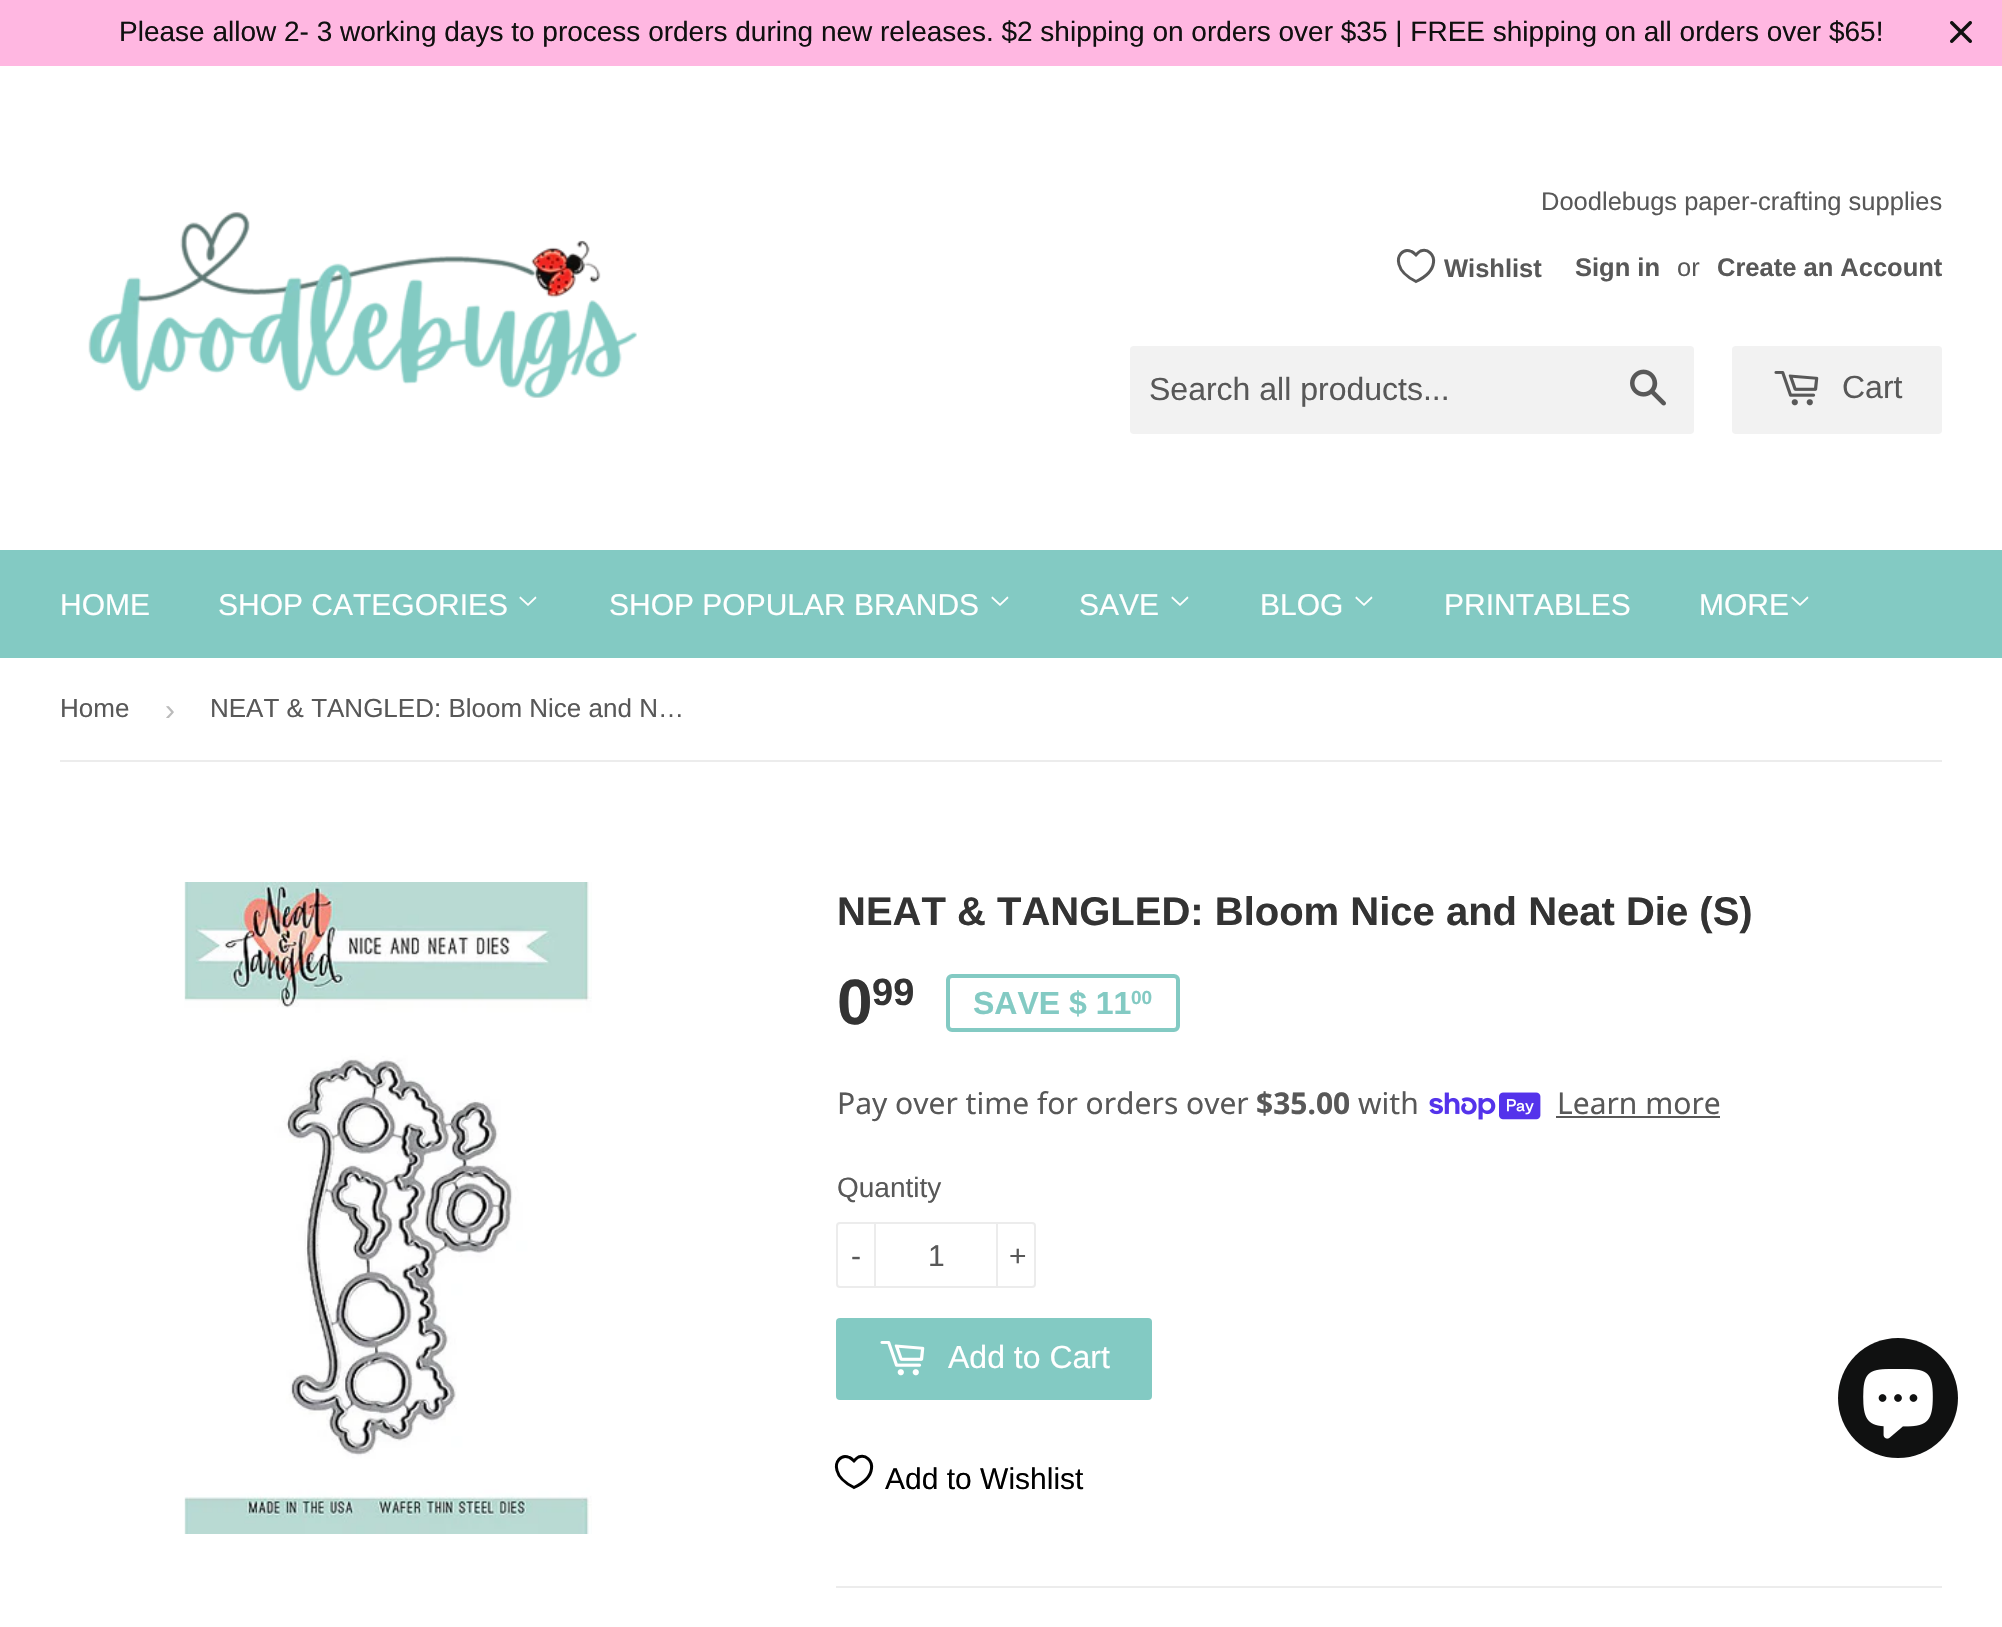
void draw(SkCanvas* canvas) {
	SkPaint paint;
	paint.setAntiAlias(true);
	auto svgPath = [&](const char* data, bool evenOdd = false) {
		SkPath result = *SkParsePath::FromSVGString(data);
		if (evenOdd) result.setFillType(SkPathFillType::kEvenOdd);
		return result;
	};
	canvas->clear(0xffffffff);
	paint.setColor(0xffffb7e1);
	canvas->drawRect(SkRect::MakeXYWH(0, 0, 2002, 66), paint);
	SkFont f1(fontMgr->matchFamilyStyle("Liberation Sans", SkFontStyle::Normal()), 28);
	f1.setSubpixel(true);
	paint.setColor(0xff101010);
	canvas->drawString("Please allow 2- 3 working days to process orders during new releases. $2 shipping on orders over $35 | FREE shipping on all orders over $65!", 119, 41, f1, paint);
	canvas->drawImageRect(SkImages::DeferredFromEncodedData(SkData::MakeFromFileName("img1.png")), SkRect::MakeXYWH(1950, 21, 22, 22), SkSamplingOptions());
	canvas->drawImageRect(SkImages::DeferredFromEncodedData(SkData::MakeFromFileName("img2.png")), SkRect::MakeXYWH(88, 212, 549, 186), SkSamplingOptions());
	SkFont f2(fontMgr->matchFamilyStyle("Liberation Sans", SkFontStyle::Normal()), 25.5);
	f2.setSubpixel(true);
	paint.setColor(0xff585858);
	canvas->drawString("Doodlebugs paper-crafting supplies", 1541, 210, f2, paint);
	paint.setStroke(true);
	paint.setStrokeWidth(3);
	canvas->drawPath(svgPath("M1416 281.5C1409 278 1401 272.5 1399 264.5C1396.5 256.5 1402.5 247.5 1411.5 251.5C1413 252 1414.5 253.5 1416 255C1417.5 253.5 1418.5 252 1420.5 251C1428 248 1434.5 255 1433.5 262.5C1432.5 271.5 1423.5 278 1416 281.5Z"), paint);
	SkFont f3(fontMgr->matchFamilyStyle("Liberation Sans", SkFontStyle::Bold()), 25.5);
	f3.setSubpixel(true);
	paint.setStroke(false);
	canvas->drawString("Wishlist", 1444, 277, f3, paint);
	canvas->drawString("Sign in", 1575, 276, f3, paint);
	canvas->drawString("or", 1677, 276, f2, paint);
	canvas->drawString("Create an Account", 1717, 276, f3, paint);
	paint.setColor(0xfff2f2f2);
	canvas->drawRoundRect(SkRect::MakeXYWH(1130, 346, 564, 88), 4, 4, paint);
	SkFont f4(fontMgr->matchFamilyStyle("Liberation Sans", SkFontStyle::Normal()), 32);
	f4.setSubpixel(true);
	paint.setColor(0xff585858);
	canvas->drawString("Search all products...", 1149, 400, f4, paint);
	canvas->drawImageRect(SkImages::DeferredFromEncodedData(SkData::MakeFromFileName("img3.png")), SkRect::MakeXYWH(1630, 369, 36, 37), SkSamplingOptions());
	paint.setColor(0xfff2f2f2);
	canvas->drawRoundRect(SkRect::MakeXYWH(1732, 346, 210, 88), 4, 4, paint);
	canvas->drawImageRect(SkImages::DeferredFromEncodedData(SkData::MakeFromFileName("img4.png")), SkRect::MakeXYWH(1774, 371, 45, 35), SkSamplingOptions());
	paint.setColor(0xff585858);
	canvas->drawString("Cart", 1842, 398, f4, paint);
	paint.setColor(0xff83cac3);
	canvas->drawRect(SkRect::MakeXYWH(0, 550, 2002, 108), paint);
	SkFont f5(fontMgr->matchFamilyStyle("Liberation Sans", SkFontStyle::Normal()), 30);
	f5.setSubpixel(true);
	paint.setColor(0xffffffff);
	canvas->drawString("HOME", 60, 615, f5, paint);
	canvas->drawString("SHOP CATEGORIES", 218, 615, f5, paint);
	canvas->drawImageRect(SkImages::DeferredFromEncodedData(SkData::MakeFromFileName("img5.png")), SkRect::MakeXYWH(519, 596, 18, 10), SkSamplingOptions());
	canvas->drawString("SHOP POPULAR BRANDS", 609, 615, f5, paint);
	canvas->drawImageRect(SkImages::DeferredFromEncodedData(SkData::MakeFromFileName("img5.png")), SkRect::MakeXYWH(991, 596, 18, 10), SkSamplingOptions());
	canvas->drawString("SAVE", 1079, 615, f5, paint);
	canvas->drawImageRect(SkImages::DeferredFromEncodedData(SkData::MakeFromFileName("img5.png")), SkRect::MakeXYWH(1171, 596, 18, 10), SkSamplingOptions());
	canvas->drawString("BLOG", 1260, 615, f5, paint);
	canvas->drawImageRect(SkImages::DeferredFromEncodedData(SkData::MakeFromFileName("img5.png")), SkRect::MakeXYWH(1355, 596, 18, 10), SkSamplingOptions());
	canvas->drawString("PRINTABLES", 1444, 615, f5, paint);
	canvas->drawString("MORE", 1699, 615, f5, paint);
	canvas->drawImageRect(SkImages::DeferredFromEncodedData(SkData::MakeFromFileName("img5.png")), SkRect::MakeXYWH(1791, 596, 18, 10), SkSamplingOptions());
	paint.setColor(0xffececec);
	canvas->drawRect(SkRect::MakeXYWH(60, 760, 1882, 2), paint);
	SkFont f6(fontMgr->matchFamilyStyle("Liberation Sans", SkFontStyle::Normal()), 26);
	f6.setSubpixel(true);
	paint.setColor(0xff585858);
	canvas->drawString("Home", 60, 717, f6, paint);
	paint.setColor(0xffbbbbbb);
	canvas->drawString("›", 165, 720, f5, paint);
	paint.setColor(0xff585858);
	canvas->drawString("NEAT & TANGLED: Bloom Nice and N…", 210, 717, f6, paint);
	canvas->drawImageRect(SkImages::DeferredFromEncodedData(SkData::MakeFromFileName("img6.png")), SkRect::MakeXYWH(184, 882, 408, 652), SkSamplingOptions());
	SkFont f7(fontMgr->matchFamilyStyle("Liberation Sans", SkFontStyle::Bold()), 40);
	f7.setSubpixel(true);
	paint.setColor(0xff333333);
	canvas->drawString("NEAT & TANGLED: Bloom Nice and Neat Die (S)", 837, 925, f7, paint);
	SkFont f8(fontMgr->matchFamilyStyle("Liberation Sans", SkFontStyle::Bold()), 64);
	f8.setSubpixel(true);
	canvas->drawString("0", 837, 1024, f8, paint);
	SkFont f9(fontMgr->matchFamilyStyle("Liberation Sans", SkFontStyle::Bold()), 38);
	f9.setSubpixel(true);
	canvas->drawString("99", 872, 1005, f9, paint);
	paint.setStroke(true);
	paint.setStrokeWidth(4);
	paint.setColor(0xff83cac3);
	canvas->drawRoundRect(SkRect::MakeXYWH(948, 976, 230, 54), 4, 4, paint);
	SkFont f10(fontMgr->matchFamilyStyle("Liberation Sans", SkFontStyle::Bold()), 32);
	f10.setSubpixel(true);
	paint.setStroke(false);
	canvas->drawString("SAVE $ 11", 973, 1014, f10, paint);
	SkFont f11(fontMgr->matchFamilyStyle("Liberation Sans", SkFontStyle::Bold()), 19);
	f11.setSubpixel(true);
	canvas->drawString("00", 1131, 1004, f11, paint);
	SkFont f12(fontMgr->matchFamilyStyle("Noto Sans", SkFontStyle::Normal()), 30);
	f12.setSubpixel(true);
	paint.setColor(0xff585858);
	canvas->drawString("Pay over time for orders over", 837, 1114, f12, paint);
	SkFont f13(fontMgr->matchFamilyStyle("Noto Sans", SkFontStyle::Bold()), 30);
	f13.setSubpixel(true);
	canvas->drawString("$35.00", 1256, 1114, f13, paint);
	canvas->drawString("with", 1358, 1114, f12, paint);
	canvas->drawImageRect(SkImages::DeferredFromEncodedData(SkData::MakeFromFileName("img7.png")), SkRect::MakeXYWH(1429, 1092, 112, 28), SkSamplingOptions());
	canvas->drawString("Learn more", 1557, 1114, f12, paint);
	canvas->drawRect(SkRect::MakeXYWH(1556, 1116, 164, 2), paint);
	canvas->drawString("Quantity", 837, 1197, f1, paint);
	paint.setStroke(true);
	paint.setStrokeWidth(2);
	paint.setColor(0xffececec);
	canvas->drawRoundRect(SkRect::MakeXYWH(837, 1223, 198, 64), 3, 3, paint);
	paint.setStroke(false);
	canvas->drawRect(SkRect::MakeXYWH(874, 1222, 2, 66), paint);
	paint.setColor(0xff585858);
	canvas->drawString("-", 851, 1266, f5, paint);
	canvas->drawString("1", 928, 1266, f5, paint);
	paint.setColor(0xffececec);
	canvas->drawRect(SkRect::MakeXYWH(996, 1222, 2, 66), paint);
	paint.setColor(0xff585858);
	canvas->drawString("+", 1009, 1266, f5, paint);
	paint.setColor(0xff83cac3);
	canvas->drawRoundRect(SkRect::MakeXYWH(836, 1318, 316, 82), 4, 4, paint);
	canvas->drawImageRect(SkImages::DeferredFromEncodedData(SkData::MakeFromFileName("img8.png")), SkRect::MakeXYWH(880, 1341, 45, 35), SkSamplingOptions());
	paint.setColor(0xffffffff);
	canvas->drawString("Add to Cart", 948, 1368, f4, paint);
	paint.setStroke(true);
	paint.setStrokeWidth(3);
	paint.setColor(0xff000000);
	canvas->drawPath(svgPath("M854 1487.5C847 1484 839 1478.5 837 1470.5C834.5 1462.5 840.5 1453.5 849.5 1457.5C851 1458 852.5 1459.5 854 1461C855.5 1459.5 856.5 1458 858.5 1457C866 1454 872.5 1461 871.5 1468.5C870.5 1477.5 861.5 1484 854 1487.5Z"), paint);
	paint.setStroke(false);
	canvas->drawString("Add to Wishlist", 885, 1489, f5, paint);
	paint.setColor(0xffececec);
	canvas->drawRect(SkRect::MakeXYWH(836, 1586, 1106, 2), paint);
	paint.setColor(0xff101111);
	canvas->drawCircle(1898, 1398, 60, paint);
	canvas->drawImageRect(SkImages::DeferredFromEncodedData(SkData::MakeFromFileName("img9.png")), SkRect::MakeXYWH(1863, 1369, 70, 70), SkSamplingOptions());
}
